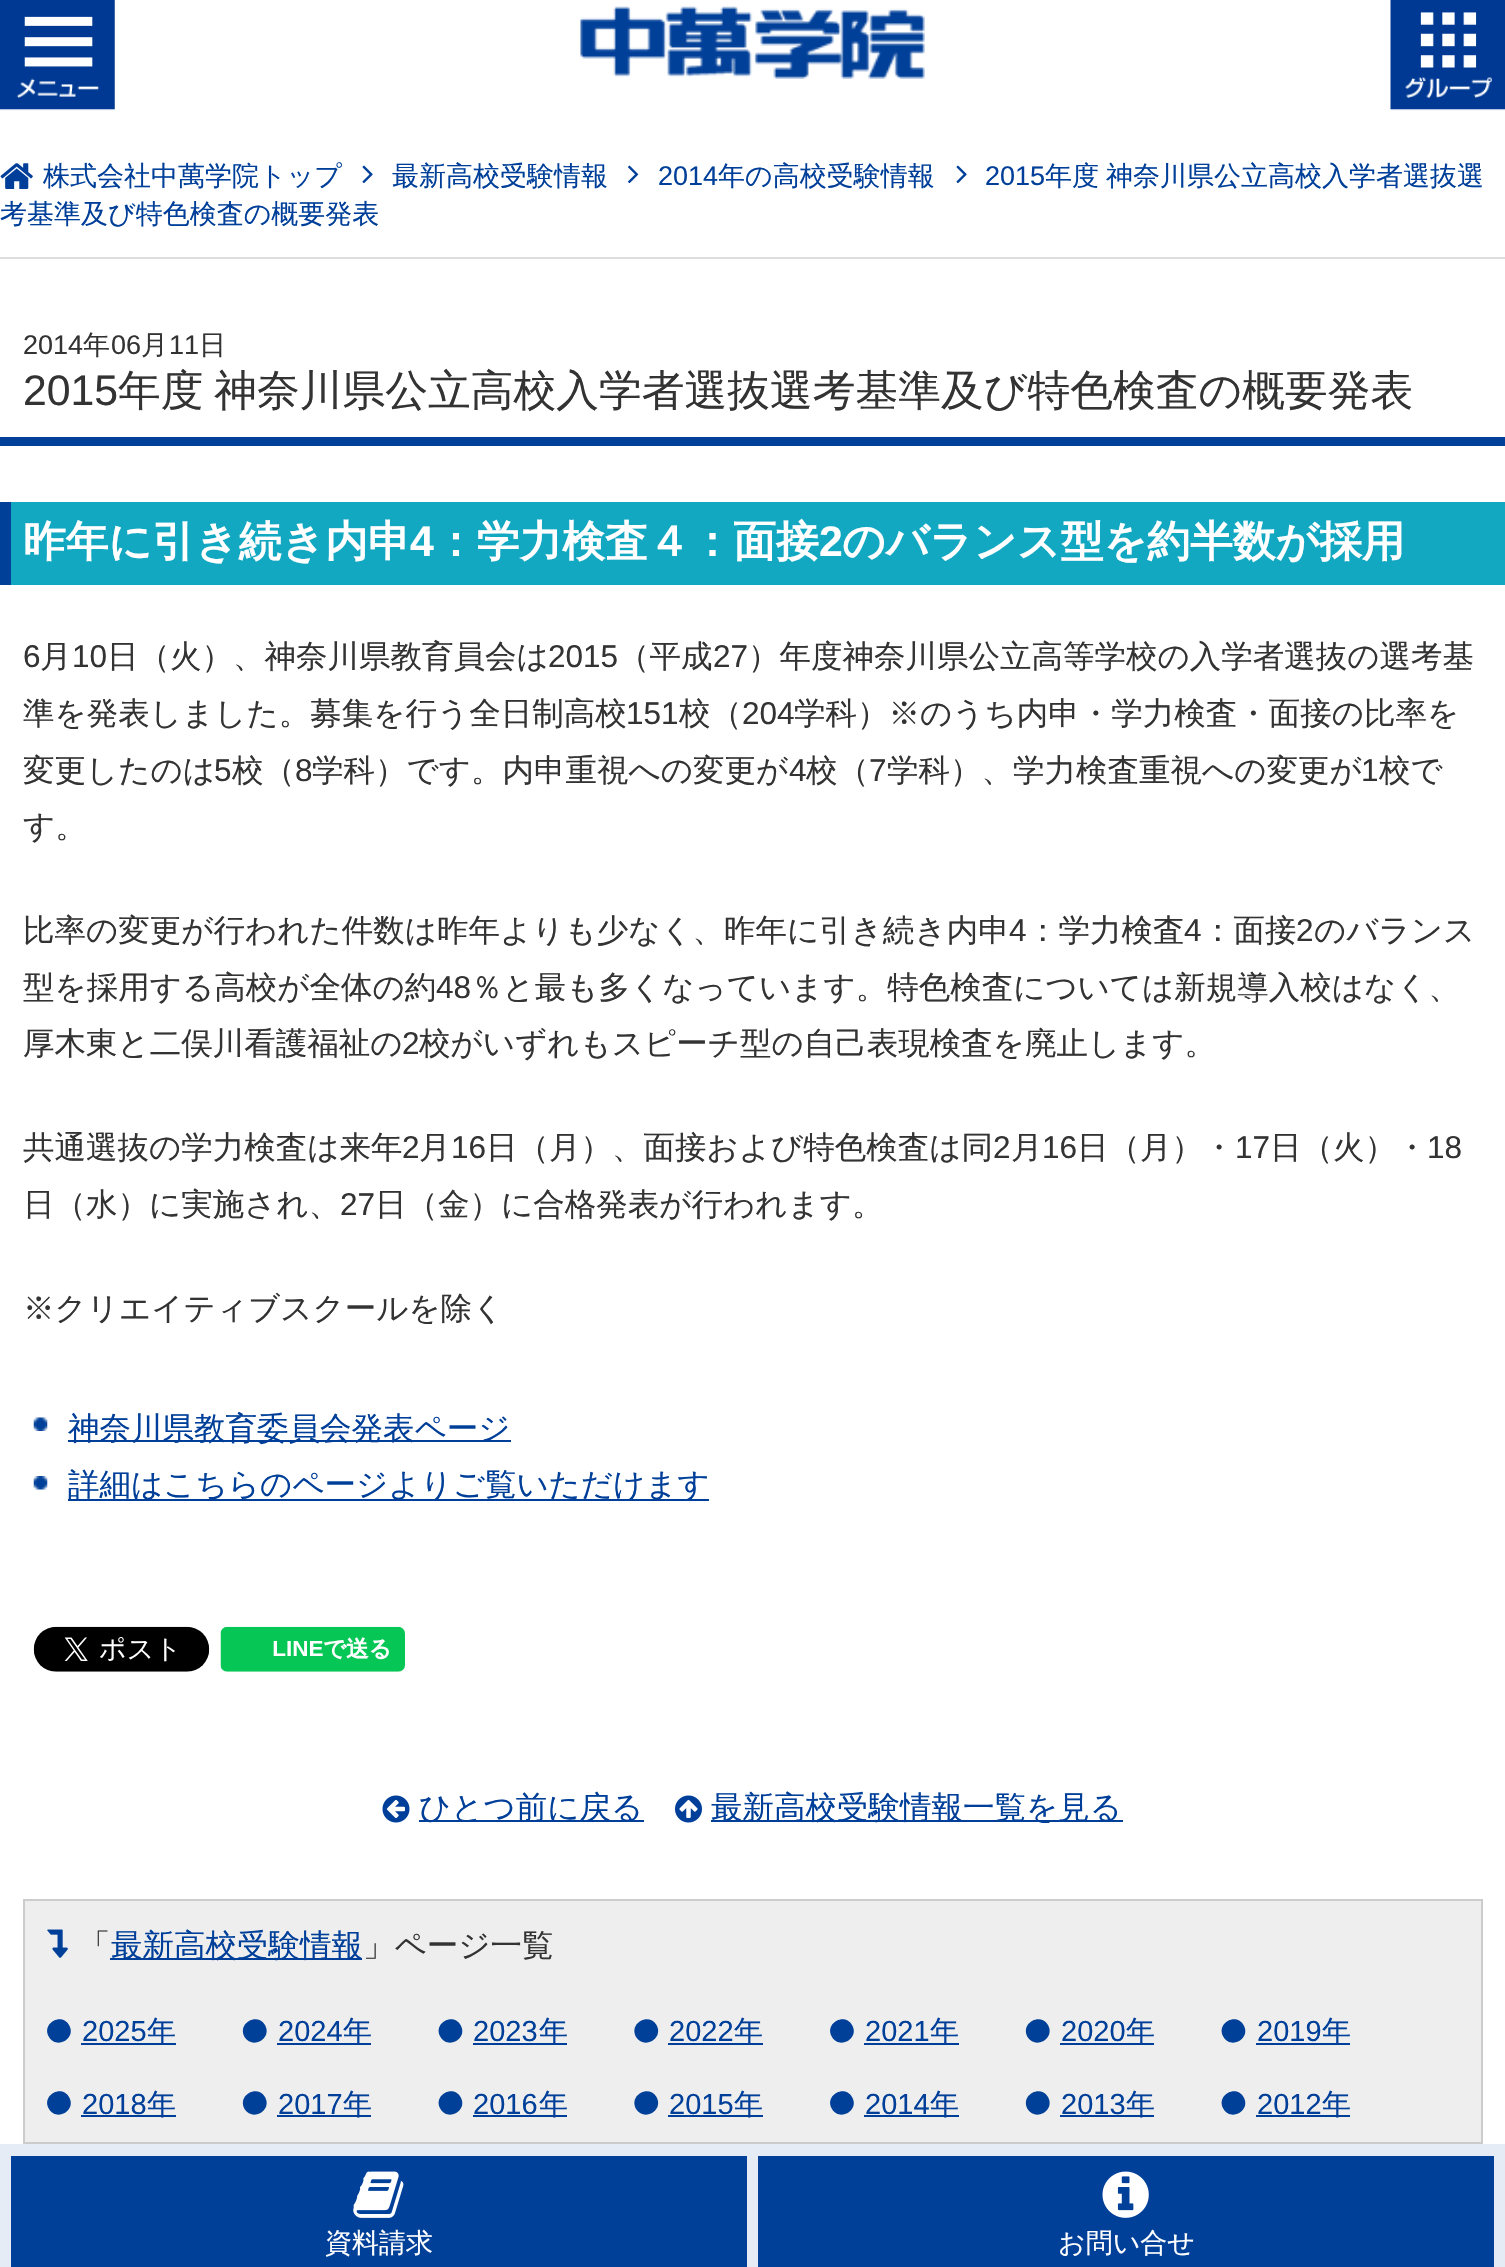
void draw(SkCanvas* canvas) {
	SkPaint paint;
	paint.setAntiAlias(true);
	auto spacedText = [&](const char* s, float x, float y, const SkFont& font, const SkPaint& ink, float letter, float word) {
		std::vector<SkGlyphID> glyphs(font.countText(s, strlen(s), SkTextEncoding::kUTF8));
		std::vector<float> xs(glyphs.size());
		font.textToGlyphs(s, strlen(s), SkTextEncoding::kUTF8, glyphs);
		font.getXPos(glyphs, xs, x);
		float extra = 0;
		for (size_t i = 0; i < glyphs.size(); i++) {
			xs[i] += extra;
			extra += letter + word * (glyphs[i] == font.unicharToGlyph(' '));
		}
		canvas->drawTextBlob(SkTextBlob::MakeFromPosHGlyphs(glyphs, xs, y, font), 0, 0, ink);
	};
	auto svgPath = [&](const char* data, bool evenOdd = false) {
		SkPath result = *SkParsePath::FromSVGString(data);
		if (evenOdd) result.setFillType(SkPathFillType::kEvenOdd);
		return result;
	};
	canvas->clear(0xffffffff);
	canvas->drawImageRect(SkImages::DeferredFromEncodedData(SkData::MakeFromFileName("img1.png")), SkRect::MakeXYWH(0, 0, 115, 111), SkSamplingOptions());
	canvas->drawImageRect(SkImages::DeferredFromEncodedData(SkData::MakeFromFileName("img2.png")), SkRect::MakeXYWH(580, 6, 345, 73), SkSamplingOptions());
	canvas->drawImageRect(SkImages::DeferredFromEncodedData(SkData::MakeFromFileName("img3.png")), SkRect::MakeXYWH(1390, 0, 115, 111), SkSamplingOptions());
	canvas->drawImageRect(SkImages::DeferredFromEncodedData(SkData::MakeFromFileName("img4.png")), SkRect::MakeXYWH(0, 163, 33, 26), SkSamplingOptions());
	SkFont f1(fontMgr->matchFamilyStyle("WenQuanYi Zen Hei", SkFontStyle(500, SkFontStyle::kNormal_Width, SkFontStyle::kUpright_Slant)), 27);
	f1.setSubpixel(true);
	paint.setColor(0xff003f99);
	canvas->drawString("株式会社中萬学院トップ", 43, 185, f1, paint);
	canvas->drawImageRect(SkImages::DeferredFromEncodedData(SkData::MakeFromFileName("img5.png")), SkRect::MakeXYWH(362, 165, 11, 19), SkSamplingOptions());
	canvas->drawString("最新高校受験情報", 392, 185, f1, paint);
	canvas->drawImageRect(SkImages::DeferredFromEncodedData(SkData::MakeFromFileName("img6.png")), SkRect::MakeXYWH(628, 165, 11, 19), SkSamplingOptions());
	SkFont f2(fontMgr->matchFamilyStyle("Liberation Sans", SkFontStyle::Normal()), 27);
	f2.setSubpixel(true);
	canvas->drawString("2014", 658, 185, f2, paint);
	canvas->drawString("年の高校受験情報", 718, 185, f1, paint);
	canvas->drawImageRect(SkImages::DeferredFromEncodedData(SkData::MakeFromFileName("img5.png")), SkRect::MakeXYWH(956, 165, 11, 19), SkSamplingOptions());
	canvas->drawString("2015", 985, 185, f2, paint);
	spacedText("年度 神奈川県公立高校入学者選抜選", 1045, 185, f1, paint, 0, -1);
	canvas->drawString("考基準及び特色検査の概要発表", 0, 223, f1, paint);
	paint.setColor(0xffdddddd);
	canvas->drawRect(SkRect::MakeXYWH(0, 257, 1505, 2), paint);
	paint.setColor(0xff014099);
	canvas->drawRect(SkRect::MakeXYWH(0, 437, 1505, 9), paint);
	paint.setColor(0xff333333);
	canvas->drawString("2014", 23, 354, f2, paint);
	canvas->drawString("年", 83, 354, f1, paint);
	canvas->drawString("06", 111, 354, f2, paint);
	canvas->drawString("月", 141, 354, f1, paint);
	canvas->drawString("11", 169, 354, f2, paint);
	canvas->drawString("日", 199, 354, f1, paint);
	SkFont f3(fontMgr->matchFamilyStyle("Liberation Sans", SkFontStyle::Normal()), 42.75);
	f3.setSubpixel(true);
	canvas->drawString("2015", 23, 405, f3, paint);
	SkFont f4(fontMgr->matchFamilyStyle("WenQuanYi Zen Hei", SkFontStyle(500, SkFontStyle::kNormal_Width, SkFontStyle::kUpright_Slant)), 42.75);
	f4.setSubpixel(true);
	spacedText("年度 神奈川県公立高校入学者選抜選考基準及び特色検査の概要発表", 118, 405, f4, paint, 0, -2);
	paint.setColor(0xff12a8c2);
	canvas->drawRect(SkRect::MakeXYWH(11, 502, 1494, 83), paint);
	paint.setColor(0xff014099);
	canvas->drawRect(SkRect::MakeXYWH(0, 502, 11, 83), paint);
	SkFont f5(fontMgr->matchFamilyStyle("WenQuanYi Zen Hei", SkFontStyle::Bold()), 42.75);
	f5.setSubpixel(true);
	paint.setColor(0xffffffff);
	canvas->drawString("昨年に引き続き内申", 23, 556, f5, paint);
	SkFont f6(fontMgr->matchFamilyStyle("Liberation Sans", SkFontStyle::Bold()), 42.75);
	f6.setSubpixel(true);
	canvas->drawString("4", 410, 556, f6, paint);
	canvas->drawString("：学力検査４：面接", 434, 556, f5, paint);
	canvas->drawString("2", 819, 556, f6, paint);
	canvas->drawString("のバランス型を約半数が採用", 842, 556, f5, paint);
	SkFont f7(fontMgr->matchFamilyStyle("Liberation Sans", SkFontStyle::Normal()), 31.5);
	f7.setSubpixel(true);
	paint.setColor(0xff333333);
	canvas->drawString("6", 23, 667, f7, paint);
	SkFont f8(fontMgr->matchFamilyStyle("WenQuanYi Zen Hei", SkFontStyle(500, SkFontStyle::kNormal_Width, SkFontStyle::kUpright_Slant)), 31.5);
	f8.setSubpixel(true);
	canvas->drawString("月", 40, 667, f8, paint);
	canvas->drawString("10", 72, 667, f7, paint);
	canvas->drawString("日（火）、神奈川県教育員会は", 107, 667, f8, paint);
	canvas->drawString("2015", 548, 667, f7, paint);
	canvas->drawString("（平成", 618, 667, f8, paint);
	canvas->drawString("27", 713, 667, f7, paint);
	canvas->drawString("）年度神奈川県公立高等学校の入学者選抜の選考基", 748, 667, f8, paint);
	canvas->drawString("準を発表しました。募集を行う全日制高校", 23, 724, f8, paint);
	canvas->drawString("151", 626, 724, f7, paint);
	canvas->drawString("校（", 679, 724, f8, paint);
	canvas->drawString("204", 742, 724, f7, paint);
	canvas->drawString("学科）※のうち内申・学力検査・面接の比率を", 794, 724, f8, paint);
	canvas->drawString("変更したのは", 23, 781, f8, paint);
	canvas->drawString("5", 214, 781, f7, paint);
	canvas->drawString("校（", 232, 781, f8, paint);
	canvas->drawString("8", 295, 781, f7, paint);
	canvas->drawString("学科）です。内申重視への変更が", 312, 781, f8, paint);
	canvas->drawString("4", 789, 781, f7, paint);
	canvas->drawString("校（", 806, 781, f8, paint);
	canvas->drawString("7", 869, 781, f7, paint);
	canvas->drawString("学科）、学力検査重視への変更が", 887, 781, f8, paint);
	canvas->drawString("1", 1361, 781, f7, paint);
	canvas->drawString("校で", 1379, 781, f8, paint);
	canvas->drawString("す。", 23, 837, f8, paint);
	canvas->drawString("比率の変更が行われた件数は昨年よりも少なく、昨年に引き続き内申", 23, 941, f8, paint);
	canvas->drawString("4", 1009, 941, f7, paint);
	canvas->drawString("：学力検査", 1027, 941, f8, paint);
	canvas->drawString("4", 1184, 941, f7, paint);
	canvas->drawString("：面接", 1202, 941, f8, paint);
	canvas->drawString("2", 1296, 941, f7, paint);
	canvas->drawString("のバランス", 1314, 941, f8, paint);
	canvas->drawString("型を採用する高校が全体の約", 23, 998, f8, paint);
	canvas->drawString("48", 436, 998, f7, paint);
	canvas->drawString("％と最も多くなっています。特色検査については新規導入校はなく、", 471, 998, f8, paint);
	canvas->drawString("厚木東と二俣川看護福祉の", 23, 1054, f8, paint);
	canvas->drawString("2", 402, 1054, f7, paint);
	canvas->drawString("校がいずれもスピーチ型の自己表現検査を廃止します。", 419, 1054, f8, paint);
	canvas->drawString("共通選抜の学力検査は来年", 23, 1158, f8, paint);
	canvas->drawString("2", 402, 1158, f7, paint);
	canvas->drawString("月", 419, 1158, f8, paint);
	canvas->drawString("16", 451, 1158, f7, paint);
	canvas->drawString("日（月）、面接および特色検査は同", 486, 1158, f8, paint);
	canvas->drawString("2", 993, 1158, f7, paint);
	canvas->drawString("月", 1011, 1158, f8, paint);
	canvas->drawString("16", 1042, 1158, f7, paint);
	canvas->drawString("日（月）・", 1077, 1158, f8, paint);
	canvas->drawString("17", 1235, 1158, f7, paint);
	canvas->drawString("日（火）・", 1270, 1158, f8, paint);
	canvas->drawString("18", 1427, 1158, f7, paint);
	canvas->drawString("日（水）に実施され、", 23, 1215, f8, paint);
	canvas->drawString("27", 340, 1215, f7, paint);
	canvas->drawString("日（金）に合格発表が行われます。", 375, 1215, f8, paint);
	canvas->drawString("※クリエイティブスクールを除く", 23, 1319, f8, paint);
	canvas->drawImageRect(SkImages::DeferredFromEncodedData(SkData::MakeFromFileName("img7.png")), SkRect::MakeXYWH(33, 1417, 15, 14), SkSamplingOptions());
	paint.setColor(0xff003f99);
	canvas->drawRect(SkRect::MakeXYWH(68, 1440, 443, 2), paint);
	canvas->drawString("神奈川県教育委員会発表ページ", 68, 1439, f8, paint);
	canvas->drawImageRect(SkImages::DeferredFromEncodedData(SkData::MakeFromFileName("img8.png")), SkRect::MakeXYWH(33, 1476, 15, 14), SkSamplingOptions());
	canvas->drawRect(SkRect::MakeXYWH(68, 1499, 641, 2), paint);
	canvas->drawString("詳細はこちらのページよりご覧いただけます", 68, 1495, f8, paint);
	canvas->drawImageRect(SkImages::DeferredFromEncodedData(SkData::MakeFromFileName("img9.png")), SkRect::MakeXYWH(33, 1626, 177, 46), SkSamplingOptions());
	canvas->drawImageRect(SkImages::DeferredFromEncodedData(SkData::MakeFromFileName("img10.png")), SkRect::MakeXYWH(220, 1626, 185, 46), SkSamplingOptions());
	canvas->drawImageRect(SkImages::DeferredFromEncodedData(SkData::MakeFromFileName("img11.png")), SkRect::MakeXYWH(382, 1795, 28, 28), SkSamplingOptions());
	canvas->drawRect(SkRect::MakeXYWH(419, 1820, 225, 2), paint);
	canvas->drawString("ひとつ前に戻る", 419, 1818, f8, paint);
	canvas->drawImageRect(SkImages::DeferredFromEncodedData(SkData::MakeFromFileName("img12.png")), SkRect::MakeXYWH(675, 1795, 27, 28), SkSamplingOptions());
	canvas->drawRect(SkRect::MakeXYWH(711, 1820, 412, 2), paint);
	canvas->drawString("最新高校受験情報一覧を見る", 711, 1818, f8, paint);
	paint.setColor(0xffeeeeee);
	canvas->drawRect(SkRect::MakeXYWH(24, 1900, 1458, 243), paint);
	paint.setStroke(true);
	paint.setStrokeWidth(2);
	paint.setColor(0xffcccccc);
	canvas->drawRect(SkRect::MakeXYWH(24, 1900, 1458, 243), paint);
	canvas->drawImageRect(SkImages::DeferredFromEncodedData(SkData::MakeFromFileName("img13.png")), SkRect::MakeXYWH(47, 1929, 21, 29), SkSamplingOptions());
	paint.setStroke(false);
	paint.setColor(0xff333333);
	canvas->drawString("「", 79, 1956, f8, paint);
	paint.setColor(0xff003f99);
	canvas->drawRect(SkRect::MakeXYWH(110, 1958, 252, 2), paint);
	canvas->drawString("最新高校受験情報", 111, 1956, f8, paint);
	paint.setColor(0xff333333);
	canvas->drawString("」ページ一覧", 363, 1956, f8, paint);
	SkFont f9(fontMgr->matchFamilyStyle("Liberation Sans", SkFontStyle::Normal()), 29);
	f9.setSubpixel(true);
	paint.setColor(0xff003f99);
	canvas->drawString("2025", 82, 2041, f9, paint);
	paint.setColor(0xff014099);
	canvas->drawPath(svgPath("M69 2025C77 2038.5 56.5 2050 49 2037C41 2023.5 61.5 2012 69 2025Z"), paint);
	paint.setColor(0xff003f99);
	canvas->drawRect(SkRect::MakeXYWH(81, 2043, 95, 2), paint);
	SkFont f10(fontMgr->matchFamilyStyle("WenQuanYi Zen Hei", SkFontStyle(500, SkFontStyle::kNormal_Width, SkFontStyle::kUpright_Slant)), 29);
	f10.setSubpixel(true);
	canvas->drawString("年", 147, 2041, f10, paint);
	canvas->drawString("2024", 278, 2041, f9, paint);
	paint.setColor(0xff014099);
	canvas->drawPath(svgPath("M265 2025C272.5 2038.5 252.5 2050 244.5 2037C237 2023.5 257 2012 265 2025Z"), paint);
	paint.setColor(0xff003f99);
	canvas->drawRect(SkRect::MakeXYWH(277, 2043, 94, 2), paint);
	canvas->drawString("年", 343, 2041, f10, paint);
	canvas->drawString("2023", 473, 2041, f9, paint);
	paint.setColor(0xff014099);
	canvas->drawPath(svgPath("M460.5 2025C468.5 2038.5 448 2050 440.5 2037C432.5 2023.5 453 2012 460.5 2025Z"), paint);
	paint.setColor(0xff003f99);
	canvas->drawRect(SkRect::MakeXYWH(473, 2043, 94, 2), paint);
	canvas->drawString("年", 539, 2041, f10, paint);
	canvas->drawString("2022", 669, 2041, f9, paint);
	paint.setColor(0xff014099);
	canvas->drawPath(svgPath("M656.5 2025C664 2038.5 644 2050 636 2037C628.5 2023.5 648.5 2012 656.5 2025Z"), paint);
	paint.setColor(0xff003f99);
	canvas->drawRect(SkRect::MakeXYWH(668, 2043, 95, 2), paint);
	canvas->drawString("年", 734, 2041, f10, paint);
	canvas->drawString("2021", 865, 2041, f9, paint);
	paint.setColor(0xff014099);
	canvas->drawPath(svgPath("M852 2025C860 2038.5 839.5 2050 832 2037C824 2023.5 844.5 2012 852 2025Z"), paint);
	paint.setColor(0xff003f99);
	canvas->drawRect(SkRect::MakeXYWH(864, 2043, 95, 2), paint);
	canvas->drawString("年", 930, 2041, f10, paint);
	canvas->drawString("2020", 1061, 2041, f9, paint);
	paint.setColor(0xff014099);
	canvas->drawPath(svgPath("M1048 2025C1055.5 2038.5 1035.5 2050 1027.5 2037C1020 2023.5 1040 2012 1048 2025Z"), paint);
	paint.setColor(0xff003f99);
	canvas->drawRect(SkRect::MakeXYWH(1060, 2043, 94, 2), paint);
	canvas->drawString("年", 1126, 2041, f10, paint);
	canvas->drawString("2019", 1257, 2041, f9, paint);
	paint.setColor(0xff014099);
	canvas->drawPath(svgPath("M1243.5 2025C1251.5 2038.5 1231 2050 1223.5 2037C1215.5 2023.5 1236 2012 1243.5 2025Z"), paint);
	paint.setColor(0xff003f99);
	canvas->drawRect(SkRect::MakeXYWH(1256, 2043, 94, 2), paint);
	canvas->drawString("年", 1322, 2041, f10, paint);
	canvas->drawString("2018", 82, 2114, f9, paint);
	paint.setColor(0xff014099);
	canvas->drawPath(svgPath("M69 2097C77 2110.5 56.5 2122 49 2109C41 2095.5 61.5 2084 69 2097Z"), paint);
	paint.setColor(0xff003f99);
	canvas->drawRect(SkRect::MakeXYWH(81, 2115, 95, 2), paint);
	canvas->drawString("年", 147, 2114, f10, paint);
	canvas->drawString("2017", 278, 2114, f9, paint);
	paint.setColor(0xff014099);
	canvas->drawPath(svgPath("M265 2097C272.5 2110.5 252.5 2122 244.5 2109C237 2095.5 257 2084 265 2097Z"), paint);
	paint.setColor(0xff003f99);
	canvas->drawRect(SkRect::MakeXYWH(277, 2115, 94, 2), paint);
	canvas->drawString("年", 343, 2114, f10, paint);
	canvas->drawString("2016", 473, 2114, f9, paint);
	paint.setColor(0xff014099);
	canvas->drawPath(svgPath("M460.5 2097C468.5 2110.5 448 2122 440.5 2109C432.5 2095.5 453 2084 460.5 2097Z"), paint);
	paint.setColor(0xff003f99);
	canvas->drawRect(SkRect::MakeXYWH(473, 2115, 94, 2), paint);
	canvas->drawString("年", 539, 2114, f10, paint);
	canvas->drawString("2015", 669, 2114, f9, paint);
	paint.setColor(0xff014099);
	canvas->drawPath(svgPath("M656.5 2097C664 2110.5 644 2122 636 2109C628.5 2095.5 648.5 2084 656.5 2097Z"), paint);
	paint.setColor(0xff003f99);
	canvas->drawRect(SkRect::MakeXYWH(668, 2115, 95, 2), paint);
	canvas->drawString("年", 734, 2114, f10, paint);
	canvas->drawString("2014", 865, 2114, f9, paint);
	paint.setColor(0xff014099);
	canvas->drawPath(svgPath("M852 2097C860 2110.5 839.5 2122 832 2109C824 2095.5 844.5 2084 852 2097Z"), paint);
	paint.setColor(0xff003f99);
	canvas->drawRect(SkRect::MakeXYWH(864, 2115, 95, 2), paint);
	canvas->drawString("年", 930, 2114, f10, paint);
	canvas->drawString("2013", 1061, 2114, f9, paint);
	paint.setColor(0xff014099);
	canvas->drawPath(svgPath("M1048 2097C1055.5 2110.5 1035.5 2122 1027.5 2109C1020 2095.5 1040 2084 1048 2097Z"), paint);
	paint.setColor(0xff003f99);
	canvas->drawRect(SkRect::MakeXYWH(1060, 2115, 94, 2), paint);
	canvas->drawString("年", 1126, 2114, f10, paint);
	canvas->drawString("2012", 1257, 2114, f9, paint);
	paint.setColor(0xff014099);
	canvas->drawPath(svgPath("M1243.5 2097C1251.5 2110.5 1231 2122 1223.5 2109C1215.5 2095.5 1236 2084 1243.5 2097Z"), paint);
	paint.setColor(0xff003f99);
	canvas->drawRect(SkRect::MakeXYWH(1256, 2115, 94, 2), paint);
	canvas->drawString("年", 1322, 2114, f10, paint);
	paint.setColor(0xffe5ecf5);
	canvas->drawRect(SkRect::MakeXYWH(0, 2144, 1505, 123), paint);
	paint.setColor(0xff014099);
	canvas->drawRect(SkRect::MakeXYWH(11, 2156, 736, 111), paint);
	canvas->drawImageRect(SkImages::DeferredFromEncodedData(SkData::MakeFromFileName("img14.png")), SkRect::MakeXYWH(353, 2171, 51, 47), SkSamplingOptions());
	paint.setColor(0xffffffff);
	canvas->drawString("資料請求", 325, 2252, f1, paint);
	paint.setColor(0xff014099);
	canvas->drawRect(SkRect::MakeXYWH(758, 2156, 736, 111), paint);
	canvas->drawImageRect(SkImages::DeferredFromEncodedData(SkData::MakeFromFileName("img15.png")), SkRect::MakeXYWH(1102, 2171, 47, 47), SkSamplingOptions());
	paint.setColor(0xffffffff);
	canvas->drawString("お問い合せ", 1058, 2252, f1, paint);
}
